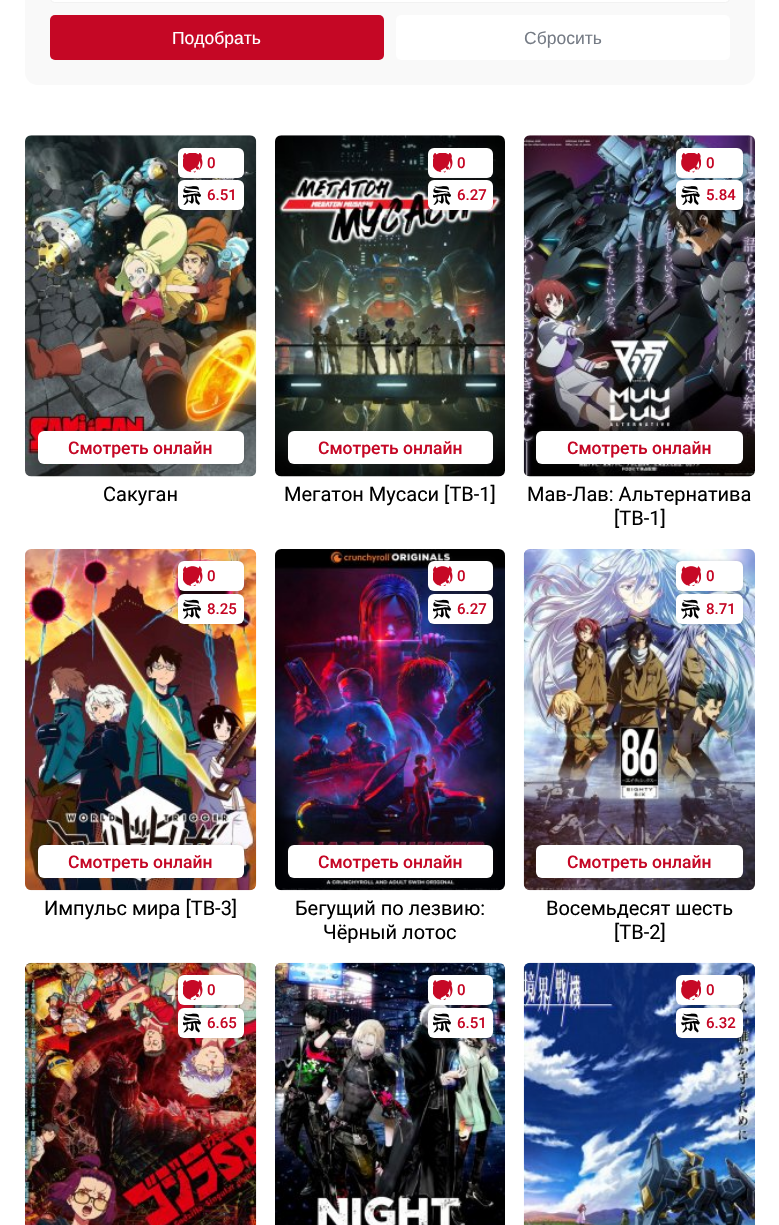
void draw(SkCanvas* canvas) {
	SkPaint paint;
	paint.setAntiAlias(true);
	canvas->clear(0xffffffff);
	paint.setColor(0xfff9f9f9);
	canvas->drawRoundRect(SkRect::MakeXYWH(25, -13, 730, 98), 13, 13, paint);
	paint.setColor(0xffffffff);
	canvas->drawRoundRect(SkRect::MakeXYWH(50.5, -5.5, 679, 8), 4.5, 4.5, paint);
	paint.setStroke(true);
	paint.setStrokeWidth(1);
	paint.setColor(0xfff2f2f2);
	canvas->drawRoundRect(SkRect::MakeXYWH(50.5, -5.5, 679, 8), 4.5, 4.5, paint);
	paint.setStroke(false);
	paint.setColor(0xffc50725);
	canvas->drawRoundRect(SkRect::MakeXYWH(50, 15, 334, 45), 5, 5, paint);
	SkFont f1(fontMgr->matchFamilyStyle("Liberation Sans", SkFontStyle::Normal()), 17.5);
	f1.setSubpixel(true);
	paint.setColor(0xffffffff);
	canvas->drawString("Подобрать", 172, 44, f1, paint);
	canvas->drawRoundRect(SkRect::MakeXYWH(396, 15, 334, 45), 5, 5, paint);
	paint.setColor(0xff757b85);
	canvas->drawString("Сбросить", 524, 44, f1, paint);
	canvas->drawImageRect(SkImages::DeferredFromEncodedData(SkData::MakeFromFileName("img1.png")), SkRect::MakeXYWH(25, 135, 232, 342), SkSamplingOptions());
	paint.setColor(0x38333333);
	paint.setMaskFilter(SkMaskFilter::MakeBlur(kNormal_SkBlurStyle, 2));
	canvas->drawRoundRect(SkRect::MakeXYWH(178, 148, 66, 30), 6, 6, paint);
	paint.setMaskFilter(nullptr);
	paint.setColor(0xffffffff);
	canvas->drawRoundRect(SkRect::MakeXYWH(178, 148, 66, 30), 6, 6, paint);
	canvas->drawImageRect(SkImages::DeferredFromEncodedData(SkData::MakeFromFileName("img2.png")), SkRect::MakeXYWH(183, 153, 20, 20), SkSamplingOptions());
	SkFont f2(fontMgr->matchFamilyStyle("Roboto", SkFontStyle(500, SkFontStyle::kNormal_Width, SkFontStyle::kUpright_Slant)), 15);
	f2.setSubpixel(true);
	paint.setColor(0xffc50725);
	canvas->drawString("0", 207, 168, f2, paint);
	paint.setColor(0x38333333);
	paint.setMaskFilter(SkMaskFilter::MakeBlur(kNormal_SkBlurStyle, 2));
	canvas->drawRoundRect(SkRect::MakeXYWH(178, 180, 66, 30), 6, 6, paint);
	paint.setMaskFilter(nullptr);
	paint.setColor(0xffffffff);
	canvas->drawRoundRect(SkRect::MakeXYWH(178, 180, 66, 30), 6, 6, paint);
	canvas->drawImageRect(SkImages::DeferredFromEncodedData(SkData::MakeFromFileName("img3.png")), SkRect::MakeXYWH(183, 186, 18, 19), SkSamplingOptions());
	paint.setColor(0xffc50725);
	canvas->drawString("6.51", 207, 200, f2, paint);
	paint.setColor(0x38333333);
	paint.setMaskFilter(SkMaskFilter::MakeBlur(kNormal_SkBlurStyle, 2));
	canvas->drawRoundRect(SkRect::MakeXYWH(38, 431, 206, 33), 6, 6, paint);
	paint.setMaskFilter(nullptr);
	paint.setColor(0xffffffff);
	canvas->drawRoundRect(SkRect::MakeXYWH(38, 431, 206, 33), 6, 6, paint);
	SkFont f3(fontMgr->matchFamilyStyle("Roboto", SkFontStyle(500, SkFontStyle::kNormal_Width, SkFontStyle::kUpright_Slant)), 17.5);
	f3.setSubpixel(true);
	paint.setColor(0xffc50725);
	canvas->drawString("Смотреть онлайн", 68, 454, f3, paint);
	SkFont f4(fontMgr->matchFamilyStyle("Roboto", SkFontStyle::Normal()), 20);
	f4.setSubpixel(true);
	paint.setColor(0xff000000);
	canvas->drawString("Сакуган", 103, 501, f4, paint);
	canvas->drawImageRect(SkImages::DeferredFromEncodedData(SkData::MakeFromFileName("img4.png")), SkRect::MakeXYWH(275, 135, 230, 342), SkSamplingOptions());
	paint.setColor(0x38333333);
	paint.setMaskFilter(SkMaskFilter::MakeBlur(kNormal_SkBlurStyle, 2));
	canvas->drawRoundRect(SkRect::MakeXYWH(428, 148, 65, 30), 6, 6, paint);
	paint.setMaskFilter(nullptr);
	paint.setColor(0xffffffff);
	canvas->drawRoundRect(SkRect::MakeXYWH(428, 148, 65, 30), 6, 6, paint);
	canvas->drawImageRect(SkImages::DeferredFromEncodedData(SkData::MakeFromFileName("img2.png")), SkRect::MakeXYWH(433, 153, 20, 20), SkSamplingOptions());
	paint.setColor(0xffc50725);
	canvas->drawString("0", 457, 168, f2, paint);
	paint.setColor(0x38333333);
	paint.setMaskFilter(SkMaskFilter::MakeBlur(kNormal_SkBlurStyle, 2));
	canvas->drawRoundRect(SkRect::MakeXYWH(428, 180, 65, 30), 6, 6, paint);
	paint.setMaskFilter(nullptr);
	paint.setColor(0xffffffff);
	canvas->drawRoundRect(SkRect::MakeXYWH(428, 180, 65, 30), 6, 6, paint);
	canvas->drawImageRect(SkImages::DeferredFromEncodedData(SkData::MakeFromFileName("img3.png")), SkRect::MakeXYWH(433, 186, 18, 19), SkSamplingOptions());
	paint.setColor(0xffc50725);
	canvas->drawString("6.27", 457, 200, f2, paint);
	paint.setColor(0x38333333);
	paint.setMaskFilter(SkMaskFilter::MakeBlur(kNormal_SkBlurStyle, 2));
	canvas->drawRoundRect(SkRect::MakeXYWH(288, 431, 205, 33), 6, 6, paint);
	paint.setMaskFilter(nullptr);
	paint.setColor(0xffffffff);
	canvas->drawRoundRect(SkRect::MakeXYWH(288, 431, 205, 33), 6, 6, paint);
	paint.setColor(0xffc50725);
	canvas->drawString("Смотреть онлайн", 318, 454, f3, paint);
	paint.setColor(0xff000000);
	canvas->drawString("Мегатон Мусаси [ТВ-1]", 284, 501, f4, paint);
	canvas->drawImageRect(SkImages::DeferredFromEncodedData(SkData::MakeFromFileName("img5.png")), SkRect::MakeXYWH(523, 135, 232, 342), SkSamplingOptions());
	paint.setColor(0x38333333);
	paint.setMaskFilter(SkMaskFilter::MakeBlur(kNormal_SkBlurStyle, 2));
	canvas->drawRoundRect(SkRect::MakeXYWH(676, 148, 67, 30), 6, 6, paint);
	paint.setMaskFilter(nullptr);
	paint.setColor(0xffffffff);
	canvas->drawRoundRect(SkRect::MakeXYWH(676, 148, 67, 30), 6, 6, paint);
	canvas->drawImageRect(SkImages::DeferredFromEncodedData(SkData::MakeFromFileName("img6.png")), SkRect::MakeXYWH(681, 153, 20, 20), SkSamplingOptions());
	paint.setColor(0xffc50725);
	canvas->drawString("0", 706, 168, f2, paint);
	paint.setColor(0x38333333);
	paint.setMaskFilter(SkMaskFilter::MakeBlur(kNormal_SkBlurStyle, 2));
	canvas->drawRoundRect(SkRect::MakeXYWH(676, 180, 67, 30), 6, 6, paint);
	paint.setMaskFilter(nullptr);
	paint.setColor(0xffffffff);
	canvas->drawRoundRect(SkRect::MakeXYWH(676, 180, 67, 30), 6, 6, paint);
	canvas->drawImageRect(SkImages::DeferredFromEncodedData(SkData::MakeFromFileName("img7.png")), SkRect::MakeXYWH(681, 186, 19, 19), SkSamplingOptions());
	paint.setColor(0xffc50725);
	canvas->drawString("5.84", 706, 200, f2, paint);
	paint.setColor(0x38333333);
	paint.setMaskFilter(SkMaskFilter::MakeBlur(kNormal_SkBlurStyle, 2));
	canvas->drawRoundRect(SkRect::MakeXYWH(536, 431, 207, 33), 6, 6, paint);
	paint.setMaskFilter(nullptr);
	paint.setColor(0xffffffff);
	canvas->drawRoundRect(SkRect::MakeXYWH(536, 431, 207, 33), 6, 6, paint);
	paint.setColor(0xffc50725);
	canvas->drawString("Смотреть онлайн", 567, 454, f3, paint);
	paint.setColor(0xff000000);
	canvas->drawString("Мав-Лав: Альтернатива", 527, 501, f4, paint);
	canvas->drawString("[ТВ-1]", 614, 525, f4, paint);
	canvas->drawImageRect(SkImages::DeferredFromEncodedData(SkData::MakeFromFileName("img8.png")), SkRect::MakeXYWH(25, 549, 232, 342), SkSamplingOptions());
	paint.setColor(0x38333333);
	paint.setMaskFilter(SkMaskFilter::MakeBlur(kNormal_SkBlurStyle, 2));
	canvas->drawRoundRect(SkRect::MakeXYWH(178, 561, 66, 30), 6, 6, paint);
	paint.setMaskFilter(nullptr);
	paint.setColor(0xffffffff);
	canvas->drawRoundRect(SkRect::MakeXYWH(178, 561, 66, 30), 6, 6, paint);
	canvas->drawImageRect(SkImages::DeferredFromEncodedData(SkData::MakeFromFileName("img9.png")), SkRect::MakeXYWH(183, 566, 20, 20), SkSamplingOptions());
	paint.setColor(0xffc50725);
	canvas->drawString("0", 207, 581, f2, paint);
	paint.setColor(0x38333333);
	paint.setMaskFilter(SkMaskFilter::MakeBlur(kNormal_SkBlurStyle, 2));
	canvas->drawRoundRect(SkRect::MakeXYWH(178, 594, 66, 30), 6, 6, paint);
	paint.setMaskFilter(nullptr);
	paint.setColor(0xffffffff);
	canvas->drawRoundRect(SkRect::MakeXYWH(178, 594, 66, 30), 6, 6, paint);
	canvas->drawImageRect(SkImages::DeferredFromEncodedData(SkData::MakeFromFileName("img10.png")), SkRect::MakeXYWH(183, 599, 18, 20), SkSamplingOptions());
	paint.setColor(0xffc50725);
	canvas->drawString("8.25", 207, 614, f2, paint);
	paint.setColor(0x38333333);
	paint.setMaskFilter(SkMaskFilter::MakeBlur(kNormal_SkBlurStyle, 2));
	canvas->drawRoundRect(SkRect::MakeXYWH(38, 845, 206, 33), 6, 6, paint);
	paint.setMaskFilter(nullptr);
	paint.setColor(0xffffffff);
	canvas->drawRoundRect(SkRect::MakeXYWH(38, 845, 206, 33), 6, 6, paint);
	paint.setColor(0xffc50725);
	canvas->drawString("Смотреть онлайн", 68, 868, f3, paint);
	paint.setColor(0xff000000);
	canvas->drawString("Импульс мира [ТВ-3]", 44, 915, f4, paint);
	canvas->drawImageRect(SkImages::DeferredFromEncodedData(SkData::MakeFromFileName("img11.png")), SkRect::MakeXYWH(275, 549, 230, 342), SkSamplingOptions());
	paint.setColor(0x38333333);
	paint.setMaskFilter(SkMaskFilter::MakeBlur(kNormal_SkBlurStyle, 2));
	canvas->drawRoundRect(SkRect::MakeXYWH(428, 561, 65, 30), 6, 6, paint);
	paint.setMaskFilter(nullptr);
	paint.setColor(0xffffffff);
	canvas->drawRoundRect(SkRect::MakeXYWH(428, 561, 65, 30), 6, 6, paint);
	canvas->drawImageRect(SkImages::DeferredFromEncodedData(SkData::MakeFromFileName("img9.png")), SkRect::MakeXYWH(433, 566, 20, 20), SkSamplingOptions());
	paint.setColor(0xffc50725);
	canvas->drawString("0", 457, 581, f2, paint);
	paint.setColor(0x38333333);
	paint.setMaskFilter(SkMaskFilter::MakeBlur(kNormal_SkBlurStyle, 2));
	canvas->drawRoundRect(SkRect::MakeXYWH(428, 594, 65, 30), 6, 6, paint);
	paint.setMaskFilter(nullptr);
	paint.setColor(0xffffffff);
	canvas->drawRoundRect(SkRect::MakeXYWH(428, 594, 65, 30), 6, 6, paint);
	canvas->drawImageRect(SkImages::DeferredFromEncodedData(SkData::MakeFromFileName("img10.png")), SkRect::MakeXYWH(433, 599, 18, 20), SkSamplingOptions());
	paint.setColor(0xffc50725);
	canvas->drawString("6.27", 457, 614, f2, paint);
	paint.setColor(0x38333333);
	paint.setMaskFilter(SkMaskFilter::MakeBlur(kNormal_SkBlurStyle, 2));
	canvas->drawRoundRect(SkRect::MakeXYWH(288, 845, 205, 33), 6, 6, paint);
	paint.setMaskFilter(nullptr);
	paint.setColor(0xffffffff);
	canvas->drawRoundRect(SkRect::MakeXYWH(288, 845, 205, 33), 6, 6, paint);
	paint.setColor(0xffc50725);
	canvas->drawString("Смотреть онлайн", 318, 868, f3, paint);
	paint.setColor(0xff000000);
	canvas->drawString("Бегущий по лезвию:", 295, 915, f4, paint);
	canvas->drawString("Чёрный лотос", 323, 939, f4, paint);
	canvas->drawImageRect(SkImages::DeferredFromEncodedData(SkData::MakeFromFileName("img12.png")), SkRect::MakeXYWH(523, 549, 232, 342), SkSamplingOptions());
	paint.setColor(0x38333333);
	paint.setMaskFilter(SkMaskFilter::MakeBlur(kNormal_SkBlurStyle, 2));
	canvas->drawRoundRect(SkRect::MakeXYWH(676, 561, 67, 30), 6, 6, paint);
	paint.setMaskFilter(nullptr);
	paint.setColor(0xffffffff);
	canvas->drawRoundRect(SkRect::MakeXYWH(676, 561, 67, 30), 6, 6, paint);
	canvas->drawImageRect(SkImages::DeferredFromEncodedData(SkData::MakeFromFileName("img13.png")), SkRect::MakeXYWH(681, 566, 20, 20), SkSamplingOptions());
	paint.setColor(0xffc50725);
	canvas->drawString("0", 706, 581, f2, paint);
	paint.setColor(0x38333333);
	paint.setMaskFilter(SkMaskFilter::MakeBlur(kNormal_SkBlurStyle, 2));
	canvas->drawRoundRect(SkRect::MakeXYWH(676, 594, 67, 30), 6, 6, paint);
	paint.setMaskFilter(nullptr);
	paint.setColor(0xffffffff);
	canvas->drawRoundRect(SkRect::MakeXYWH(676, 594, 67, 30), 6, 6, paint);
	canvas->drawImageRect(SkImages::DeferredFromEncodedData(SkData::MakeFromFileName("img14.png")), SkRect::MakeXYWH(681, 599, 19, 20), SkSamplingOptions());
	paint.setColor(0xffc50725);
	canvas->drawString("8.71", 706, 614, f2, paint);
	paint.setColor(0x38333333);
	paint.setMaskFilter(SkMaskFilter::MakeBlur(kNormal_SkBlurStyle, 2));
	canvas->drawRoundRect(SkRect::MakeXYWH(536, 845, 207, 33), 6, 6, paint);
	paint.setMaskFilter(nullptr);
	paint.setColor(0xffffffff);
	canvas->drawRoundRect(SkRect::MakeXYWH(536, 845, 207, 33), 6, 6, paint);
	paint.setColor(0xffc50725);
	canvas->drawString("Смотреть онлайн", 567, 868, f3, paint);
	paint.setColor(0xff000000);
	canvas->drawString("Восемьдесят шесть", 546, 915, f4, paint);
	canvas->drawString("[ТВ-2]", 614, 939, f4, paint);
	canvas->drawImageRect(SkImages::DeferredFromEncodedData(SkData::MakeFromFileName("img15.png")), SkRect::MakeXYWH(25, 962, 232, 263), SkSamplingOptions());
	paint.setColor(0x38333333);
	paint.setMaskFilter(SkMaskFilter::MakeBlur(kNormal_SkBlurStyle, 2));
	canvas->drawRoundRect(SkRect::MakeXYWH(178, 975, 66, 30), 6, 6, paint);
	paint.setMaskFilter(nullptr);
	paint.setColor(0xffffffff);
	canvas->drawRoundRect(SkRect::MakeXYWH(178, 975, 66, 30), 6, 6, paint);
	canvas->drawImageRect(SkImages::DeferredFromEncodedData(SkData::MakeFromFileName("img16.png")), SkRect::MakeXYWH(183, 980, 20, 20), SkSamplingOptions());
	paint.setColor(0xffc50725);
	canvas->drawString("0", 207, 995, f2, paint);
	paint.setColor(0x38333333);
	paint.setMaskFilter(SkMaskFilter::MakeBlur(kNormal_SkBlurStyle, 2));
	canvas->drawRoundRect(SkRect::MakeXYWH(178, 1008, 66, 30), 6, 6, paint);
	paint.setMaskFilter(nullptr);
	paint.setColor(0xffffffff);
	canvas->drawRoundRect(SkRect::MakeXYWH(178, 1008, 66, 30), 6, 6, paint);
	canvas->drawImageRect(SkImages::DeferredFromEncodedData(SkData::MakeFromFileName("img17.png")), SkRect::MakeXYWH(183, 1013, 18, 20), SkSamplingOptions());
	paint.setColor(0xffc50725);
	canvas->drawString("6.65", 207, 1028, f2, paint);
	canvas->drawImageRect(SkImages::DeferredFromEncodedData(SkData::MakeFromFileName("img18.png")), SkRect::MakeXYWH(275, 962, 230, 263), SkSamplingOptions());
	paint.setColor(0x38333333);
	paint.setMaskFilter(SkMaskFilter::MakeBlur(kNormal_SkBlurStyle, 2));
	canvas->drawRoundRect(SkRect::MakeXYWH(428, 975, 65, 30), 6, 6, paint);
	paint.setMaskFilter(nullptr);
	paint.setColor(0xffffffff);
	canvas->drawRoundRect(SkRect::MakeXYWH(428, 975, 65, 30), 6, 6, paint);
	canvas->drawImageRect(SkImages::DeferredFromEncodedData(SkData::MakeFromFileName("img16.png")), SkRect::MakeXYWH(433, 980, 20, 20), SkSamplingOptions());
	paint.setColor(0xffc50725);
	canvas->drawString("0", 457, 995, f2, paint);
	paint.setColor(0x38333333);
	paint.setMaskFilter(SkMaskFilter::MakeBlur(kNormal_SkBlurStyle, 2));
	canvas->drawRoundRect(SkRect::MakeXYWH(428, 1008, 65, 30), 6, 6, paint);
	paint.setMaskFilter(nullptr);
	paint.setColor(0xffffffff);
	canvas->drawRoundRect(SkRect::MakeXYWH(428, 1008, 65, 30), 6, 6, paint);
	canvas->drawImageRect(SkImages::DeferredFromEncodedData(SkData::MakeFromFileName("img17.png")), SkRect::MakeXYWH(433, 1013, 18, 20), SkSamplingOptions());
	paint.setColor(0xffc50725);
	canvas->drawString("6.51", 457, 1028, f2, paint);
	canvas->drawImageRect(SkImages::DeferredFromEncodedData(SkData::MakeFromFileName("img19.png")), SkRect::MakeXYWH(523, 962, 232, 263), SkSamplingOptions());
	paint.setColor(0x38333333);
	paint.setMaskFilter(SkMaskFilter::MakeBlur(kNormal_SkBlurStyle, 2));
	canvas->drawRoundRect(SkRect::MakeXYWH(676, 975, 67, 30), 6, 6, paint);
	paint.setMaskFilter(nullptr);
	paint.setColor(0xffffffff);
	canvas->drawRoundRect(SkRect::MakeXYWH(676, 975, 67, 30), 6, 6, paint);
	canvas->drawImageRect(SkImages::DeferredFromEncodedData(SkData::MakeFromFileName("img20.png")), SkRect::MakeXYWH(681, 980, 20, 20), SkSamplingOptions());
	paint.setColor(0xffc50725);
	canvas->drawString("0", 706, 995, f2, paint);
	paint.setColor(0x38333333);
	paint.setMaskFilter(SkMaskFilter::MakeBlur(kNormal_SkBlurStyle, 2));
	canvas->drawRoundRect(SkRect::MakeXYWH(676, 1008, 67, 30), 6, 6, paint);
	paint.setMaskFilter(nullptr);
	paint.setColor(0xffffffff);
	canvas->drawRoundRect(SkRect::MakeXYWH(676, 1008, 67, 30), 6, 6, paint);
	canvas->drawImageRect(SkImages::DeferredFromEncodedData(SkData::MakeFromFileName("img21.png")), SkRect::MakeXYWH(681, 1013, 19, 20), SkSamplingOptions());
	paint.setColor(0xffc50725);
	canvas->drawString("6.32", 706, 1028, f2, paint);
}
